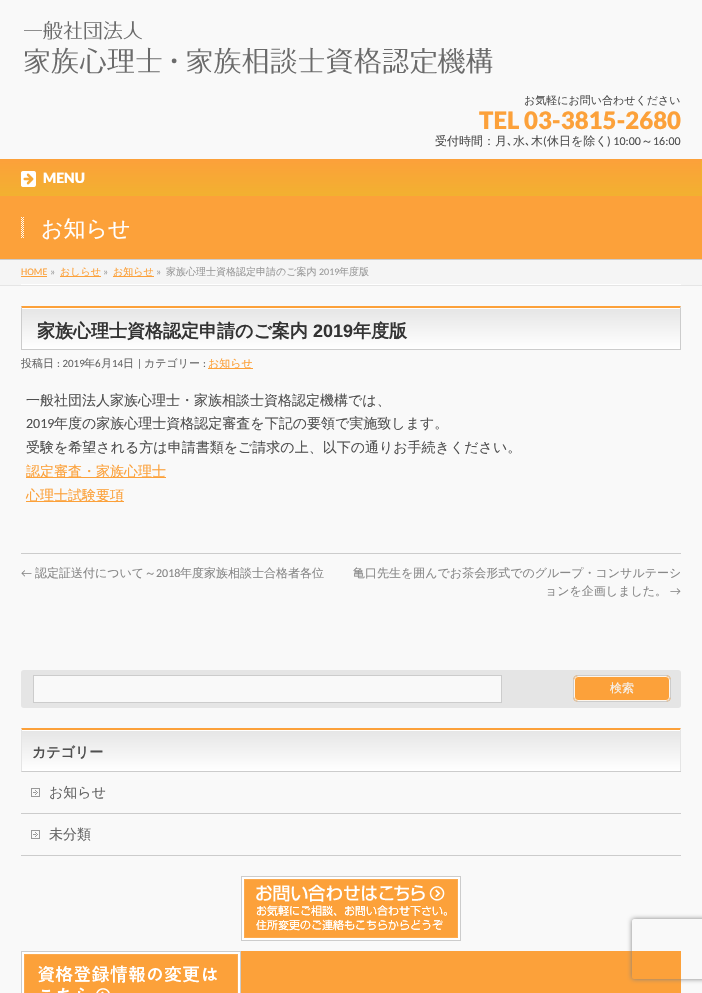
void draw(SkCanvas* canvas) {
	SkPaint paint;
	paint.setAntiAlias(true);
	auto svgPath = [&](const char* data, bool evenOdd = false) {
		SkPath result = *SkParsePath::FromSVGString(data);
		if (evenOdd) result.setFillType(SkPathFillType::kEvenOdd);
		return result;
	};
	canvas->clear(0xfff9f9f9);
	canvas->drawImageRect(SkImages::DeferredFromEncodedData(SkData::MakeFromFileName("img1.png")), SkRect::MakeXYWH(24, 20, 469, 54), SkSamplingOptions());
	SkFont f1(fontMgr->matchFamilyStyle("WenQuanYi Zen Hei", SkFontStyle(500, SkFontStyle::kNormal_Width, SkFontStyle::kUpright_Slant)), 11);
	f1.setSubpixel(true);
	paint.setColor(0xff505050);
	canvas->drawString("お気軽にお問い合わせください", 524, 104, f1, paint);
	SkFont f2(fontMgr->matchFamilyStyle("Lato", SkFontStyle(900, SkFontStyle::kNormal_Width, SkFontStyle::kUpright_Slant)), 24);
	f2.setSubpixel(true);
	paint.setColor(0xfffca13a);
	canvas->drawString("TEL 03-3815-2680", 479, 129, f2, paint);
	SkFont f3(fontMgr->matchFamilyStyle("WenQuanYi Zen Hei", SkFontStyle(500, SkFontStyle::kNormal_Width, SkFontStyle::kUpright_Slant)), 12);
	f3.setSubpixel(true);
	paint.setColor(0xff505050);
	canvas->drawString("受付時間：月", 435, 145, f3, paint);
	canvas->drawString("水", 513, 145, f3, paint);
	canvas->drawString("木", 531, 145, f3, paint);
	SkFont f4(fontMgr->matchFamilyStyle("Carlito", SkFontStyle::Normal()), 12);
	f4.setSubpixel(true);
	canvas->drawString("(", 543, 145, f4, paint);
	canvas->drawString("休日を除く", 547, 145, f3, paint);
	canvas->drawString(") 10:00", 607, 145, f4, paint);
	canvas->drawString("～", 641, 145, f3, paint);
	canvas->drawString("16:00", 653, 145, f4, paint);
	SkFont f5(fontMgr->matchFamilyStyle("IPAPGothic", SkFontStyle::Normal()), 12);
	f5.setSubpixel(true);
	canvas->drawString("､", 507, 145, f5, paint);
	canvas->drawString("､", 525, 145, f5, paint);
	paint.setColor(0xfffca13a);
	canvas->drawRect(SkRect::MakeXYWH(0, 159, 702, 2), paint);
	{
		const SkColor colors[] = {0xfffca13a, 0xfff2b130};
		const float stops[] = {0, 1};
		const SkPoint ends[] = {{351, 161}, {351, 196}};
		paint.setShader(SkGradientShader::MakeLinear(ends, colors, stops, 2, SkTileMode::kClamp));
		paint.setAlpha(255);
	}
	canvas->drawRect(SkRect::MakeXYWH(0, 161, 701, 35), paint);
	paint.setShader(nullptr);
	paint.setColor(0xfff2b130);
	canvas->drawRect(SkRect::MakeXYWH(701, 161, 1, 35), paint);
	canvas->drawImageRect(SkImages::DeferredFromEncodedData(SkData::MakeFromFileName("img2.png")), SkRect::MakeXYWH(21, 171, 15, 16), SkSamplingOptions());
	SkFont f6(fontMgr->matchFamilyStyle("Lato", SkFontStyle(900, SkFontStyle::kNormal_Width, SkFontStyle::kUpright_Slant)), 14);
	f6.setSubpixel(true);
	paint.setColor(0xffffffff);
	canvas->drawString("MENU", 43, 183, f6, paint);
	paint.setColor(0xfffca13a);
	canvas->drawRect(SkRect::MakeXYWH(0, 196, 702, 63), paint);
	paint.setColor(0xffcccccc);
	canvas->drawRect(SkRect::MakeXYWH(0, 259, 702, 1), paint);
	canvas->drawImageRect(SkImages::DeferredFromEncodedData(SkData::MakeFromFileName("img3.png")), SkRect::MakeXYWH(21, 217, 3, 21), SkSamplingOptions());
	SkFont f7(fontMgr->matchFamilyStyle("WenQuanYi Zen Hei", SkFontStyle(500, SkFontStyle::kNormal_Width, SkFontStyle::kUpright_Slant)), 22);
	f7.setSubpixel(true);
	paint.setColor(0xffffffff);
	canvas->drawString("お知らせ", 41, 236, f7, paint);
	paint.setColor(0xfff5f5f5);
	canvas->drawRect(SkRect::MakeXYWH(0, 260, 702, 25), paint);
	paint.setColor(0xffe5e5e5);
	canvas->drawRect(SkRect::MakeXYWH(0, 285, 702, 1), paint);
	paint.setColor(0xffffffff);
	canvas->drawRect(SkRect::MakeXYWH(21, 284, 660, 1), paint);
	SkFont f8(fontMgr->matchFamilyStyle("Carlito", SkFontStyle::Normal()), 10);
	f8.setSubpixel(true);
	paint.setColor(0xfffca13a);
	canvas->drawString("HOME", 21, 275, f8, paint);
	canvas->drawRect(SkRect::MakeXYWH(21, 276, 26, 1), paint);
	paint.setColor(0xff999999);
	canvas->drawString("»", 50, 275, f8, paint);
	paint.setColor(0xfffca13a);
	canvas->drawRect(SkRect::MakeXYWH(60, 276, 41, 1), paint);
	SkFont f9(fontMgr->matchFamilyStyle("WenQuanYi Zen Hei", SkFontStyle(500, SkFontStyle::kNormal_Width, SkFontStyle::kUpright_Slant)), 10);
	f9.setSubpixel(true);
	canvas->drawString("おしらせ", 60, 275, f9, paint);
	paint.setColor(0xff999999);
	canvas->drawString("»", 103, 275, f8, paint);
	paint.setColor(0xfffca13a);
	canvas->drawRect(SkRect::MakeXYWH(113, 276, 41, 1), paint);
	canvas->drawString("お知らせ", 113, 275, f9, paint);
	paint.setColor(0xff999999);
	canvas->drawString("»", 156, 275, f8, paint);
	canvas->drawString("家族心理士資格認定申請のご案内", 166, 275, f9, paint);
	canvas->drawString("2019", 319, 275, f8, paint);
	canvas->drawString("年度版", 339, 275, f9, paint);
	{
		const SkColor colors[] = {0xffe5e5e5, 0xffffffff};
		const float stops[] = {0, 1};
		const SkPoint ends[] = {{22, 308}, {22, 349}};
		paint.setShader(SkGradientShader::MakeLinear(ends, colors, stops, 2, SkTileMode::kClamp));
		paint.setAlpha(255);
	}
	canvas->drawRect(SkRect::MakeXYWH(22, 309, 658, 40), paint);
	paint.setShader(nullptr);
	paint.setColor(0xffffffff);
	canvas->drawRect(SkRect::MakeXYWH(22, 308, 658, 1), paint);
	paint.setColor(0xfffca13a);
	canvas->drawPath(svgPath("M21 306H681L680 308H22Z"), paint);
	paint.setColor(0xffcccccc);
	canvas->drawPath(svgPath("M681 306V350L680 349V308Z"), paint);
	canvas->drawRect(SkRect::MakeXYWH(21, 349, 660, 1), paint);
	canvas->drawPath(svgPath("M21 350V306L22 308V349Z"), paint);
	SkFont f10(fontMgr->matchFamilyStyle("WenQuanYi Zen Hei", SkFontStyle::Bold()), 18);
	f10.setSubpixel(true);
	paint.setColor(0xff333333);
	canvas->drawString("家族心理士資格認定申請のご案内", 37, 337, f10, paint);
	SkFont f11(fontMgr->matchFamilyStyle("Liberation Sans", SkFontStyle::Bold()), 18);
	f11.setSubpixel(true);
	canvas->drawString("2019", 313, 337, f11, paint);
	canvas->drawString("年度版", 353, 337, f10, paint);
	paint.setColor(0xff666666);
	canvas->drawString("投稿日", 21, 367, f1, paint);
	SkFont f12(fontMgr->matchFamilyStyle("Carlito", SkFontStyle::Normal()), 11);
	f12.setSubpixel(true);
	canvas->drawString(": 2019", 57, 367, f12, paint);
	canvas->drawString("年", 84, 367, f1, paint);
	canvas->drawString("6", 95, 367, f12, paint);
	canvas->drawString("月", 101, 367, f1, paint);
	canvas->drawString("14", 112, 367, f12, paint);
	canvas->drawString("日", 123, 367, f1, paint);
	canvas->drawString("|", 137, 367, f12, paint);
	canvas->drawString("カテゴリー", 144, 367, f1, paint);
	canvas->drawString(":", 203, 367, f12, paint);
	paint.setColor(0xfffca13a);
	canvas->drawRect(SkRect::MakeXYWH(208, 368, 45, 1), paint);
	canvas->drawString("お知らせ", 208, 367, f1, paint);
	SkFont f13(fontMgr->matchFamilyStyle("WenQuanYi Zen Hei", SkFontStyle(500, SkFontStyle::kNormal_Width, SkFontStyle::kUpright_Slant)), 14);
	f13.setSubpixel(true);
	paint.setColor(0xff505050);
	canvas->drawString("一般社団法人家族心理士・家族相談士資格認定機構では、", 26, 405, f13, paint);
	SkFont f14(fontMgr->matchFamilyStyle("Carlito", SkFontStyle::Normal()), 14);
	f14.setSubpixel(true);
	canvas->drawString("2019", 26, 428, f14, paint);
	canvas->drawString("年度の家族心理士資格認定審査を下記の要領で実施致します。", 54, 428, f13, paint);
	canvas->drawString("受験を希望される方は申請書類をご請求の上、以下の通りお手続きください。", 26, 452, f13, paint);
	paint.setColor(0xfffca13a);
	canvas->drawRect(SkRect::MakeXYWH(26, 477, 140, 1), paint);
	canvas->drawString("認定審査・家族心理士", 26, 476, f13, paint);
	canvas->drawRect(SkRect::MakeXYWH(26, 501, 98, 1), paint);
	canvas->drawString("心理士試験要項", 26, 500, f13, paint);
	paint.setColor(0xffcccccc);
	canvas->drawRect(SkRect::MakeXYWH(21, 553, 660, 1), paint);
	paint.setColor(0xff888888);
	canvas->drawString("←", 21, 577, f4, paint);
	canvas->drawString("認定証送付について～", 35, 577, f3, paint);
	canvas->drawString("2018", 156, 577, f4, paint);
	canvas->drawString("年度家族相談士合格者各位", 180, 577, f3, paint);
	canvas->drawString("亀口先生を囲んでお茶会形式でのグループ・コンサルテーシ", 353, 577, f3, paint);
	canvas->drawString("ョンを企画しました。", 545, 595, f3, paint);
	canvas->drawString("→", 670, 595, f4, paint);
	paint.setColor(0xffe5e5e5);
	canvas->drawRoundRect(SkRect::MakeXYWH(21, 670, 660, 38), 3, 3, paint);
	paint.setColor(0xfff9f9f9);
	canvas->drawRect(SkRect::MakeXYWH(33.5, 675.5, 468, 27), paint);
	paint.setStroke(true);
	paint.setStrokeWidth(1);
	paint.setColor(0xffcccccc);
	canvas->drawRect(SkRect::MakeXYWH(33.5, 675.5, 468, 27), paint);
	paint.setStroke(false);
	paint.setColor(0xfffca13a);
	canvas->drawRoundRect(SkRect::MakeXYWH(573, 675, 98, 27), 5, 5, paint);
	paint.setStroke(true);
	paint.setColor(0xfffff6eb);
	canvas->drawRoundRect(SkRect::MakeXYWH(574.5, 676.5, 95, 24), 3.5, 3.5, paint);
	paint.setColor(0xffcccccc);
	canvas->drawRoundRect(SkRect::MakeXYWH(573.5, 675.5, 97, 26), 4.5, 4.5, paint);
	paint.setStroke(false);
	paint.setColor(0xfff5f5f5);
	canvas->drawString("検索", 610, 692, f3, paint);
	{
		const SkColor colors[] = {0xffe5e5e5, 0xffffffff};
		const float stops[] = {0, 1};
		const SkPoint ends[] = {{22, 730}, {22, 771}};
		paint.setShader(SkGradientShader::MakeLinear(ends, colors, stops, 2, SkTileMode::kClamp));
		paint.setAlpha(255);
	}
	canvas->drawRect(SkRect::MakeXYWH(22, 731, 658, 40), paint);
	paint.setShader(nullptr);
	paint.setColor(0xffffffff);
	canvas->drawRect(SkRect::MakeXYWH(22, 730, 658, 1), paint);
	paint.setColor(0xfffca13a);
	canvas->drawPath(svgPath("M21 728H681L680 730H22Z"), paint);
	paint.setColor(0xffe5e5e5);
	canvas->drawPath(svgPath("M681 728V772L680 771V730Z"), paint);
	paint.setColor(0xffcccccc);
	canvas->drawRect(SkRect::MakeXYWH(21, 771, 660, 1), paint);
	paint.setColor(0xffe5e5e5);
	canvas->drawPath(svgPath("M21 772V728L22 730V771Z"), paint);
	SkFont f15(fontMgr->matchFamilyStyle("WenQuanYi Zen Hei", SkFontStyle::Bold()), 14);
	f15.setSubpixel(true);
	paint.setColor(0xff505050);
	canvas->drawString("カテゴリー", 32, 757, f15, paint);
	paint.setColor(0xffcccccc);
	canvas->drawRect(SkRect::MakeXYWH(21, 813, 660, 1), paint);
	canvas->drawImageRect(SkImages::DeferredFromEncodedData(SkData::MakeFromFileName("img4.png")), SkRect::MakeXYWH(31, 788, 9, 9), SkSamplingOptions());
	paint.setColor(0xff666666);
	canvas->drawString("お知らせ", 49, 797, f13, paint);
	paint.setColor(0xffcccccc);
	canvas->drawRect(SkRect::MakeXYWH(21, 855, 660, 1), paint);
	canvas->drawImageRect(SkImages::DeferredFromEncodedData(SkData::MakeFromFileName("img4.png")), SkRect::MakeXYWH(31, 830, 9, 9), SkSamplingOptions());
	paint.setColor(0xff666666);
	canvas->drawString("未分類", 49, 839, f13, paint);
	paint.setColor(0xfffca13a);
	canvas->drawRect(SkRect::MakeXYWH(244, 879, 214, 59), paint);
	canvas->drawImageRect(SkImages::DeferredFromEncodedData(SkData::MakeFromFileName("img5.png")), SkRect::MakeXYWH(241, 876, 220, 65), SkSamplingOptions());
	canvas->drawRect(SkRect::MakeXYWH(24, 951, 657, 42), paint);
	canvas->drawImageRect(SkImages::DeferredFromEncodedData(SkData::MakeFromFileName("img6.png")), SkRect::MakeXYWH(21, 951, 220, 42), SkSamplingOptions());
	canvas->save();
	canvas->clipPath(svgPath("M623 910H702V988H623ZM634 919H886C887 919 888 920 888 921V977C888 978 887 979 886 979H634C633 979 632 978 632 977V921C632 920 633 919 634 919Z", true), true);
	paint.setColor(0xff808080);
	paint.setMaskFilter(SkMaskFilter::MakeBlur(kNormal_SkBlurStyle, 2.5));
	canvas->drawRoundRect(SkRect::MakeXYWH(632, 919, 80, 60), 2, 2, paint);
	paint.setMaskFilter(nullptr);
	canvas->restore();
}
